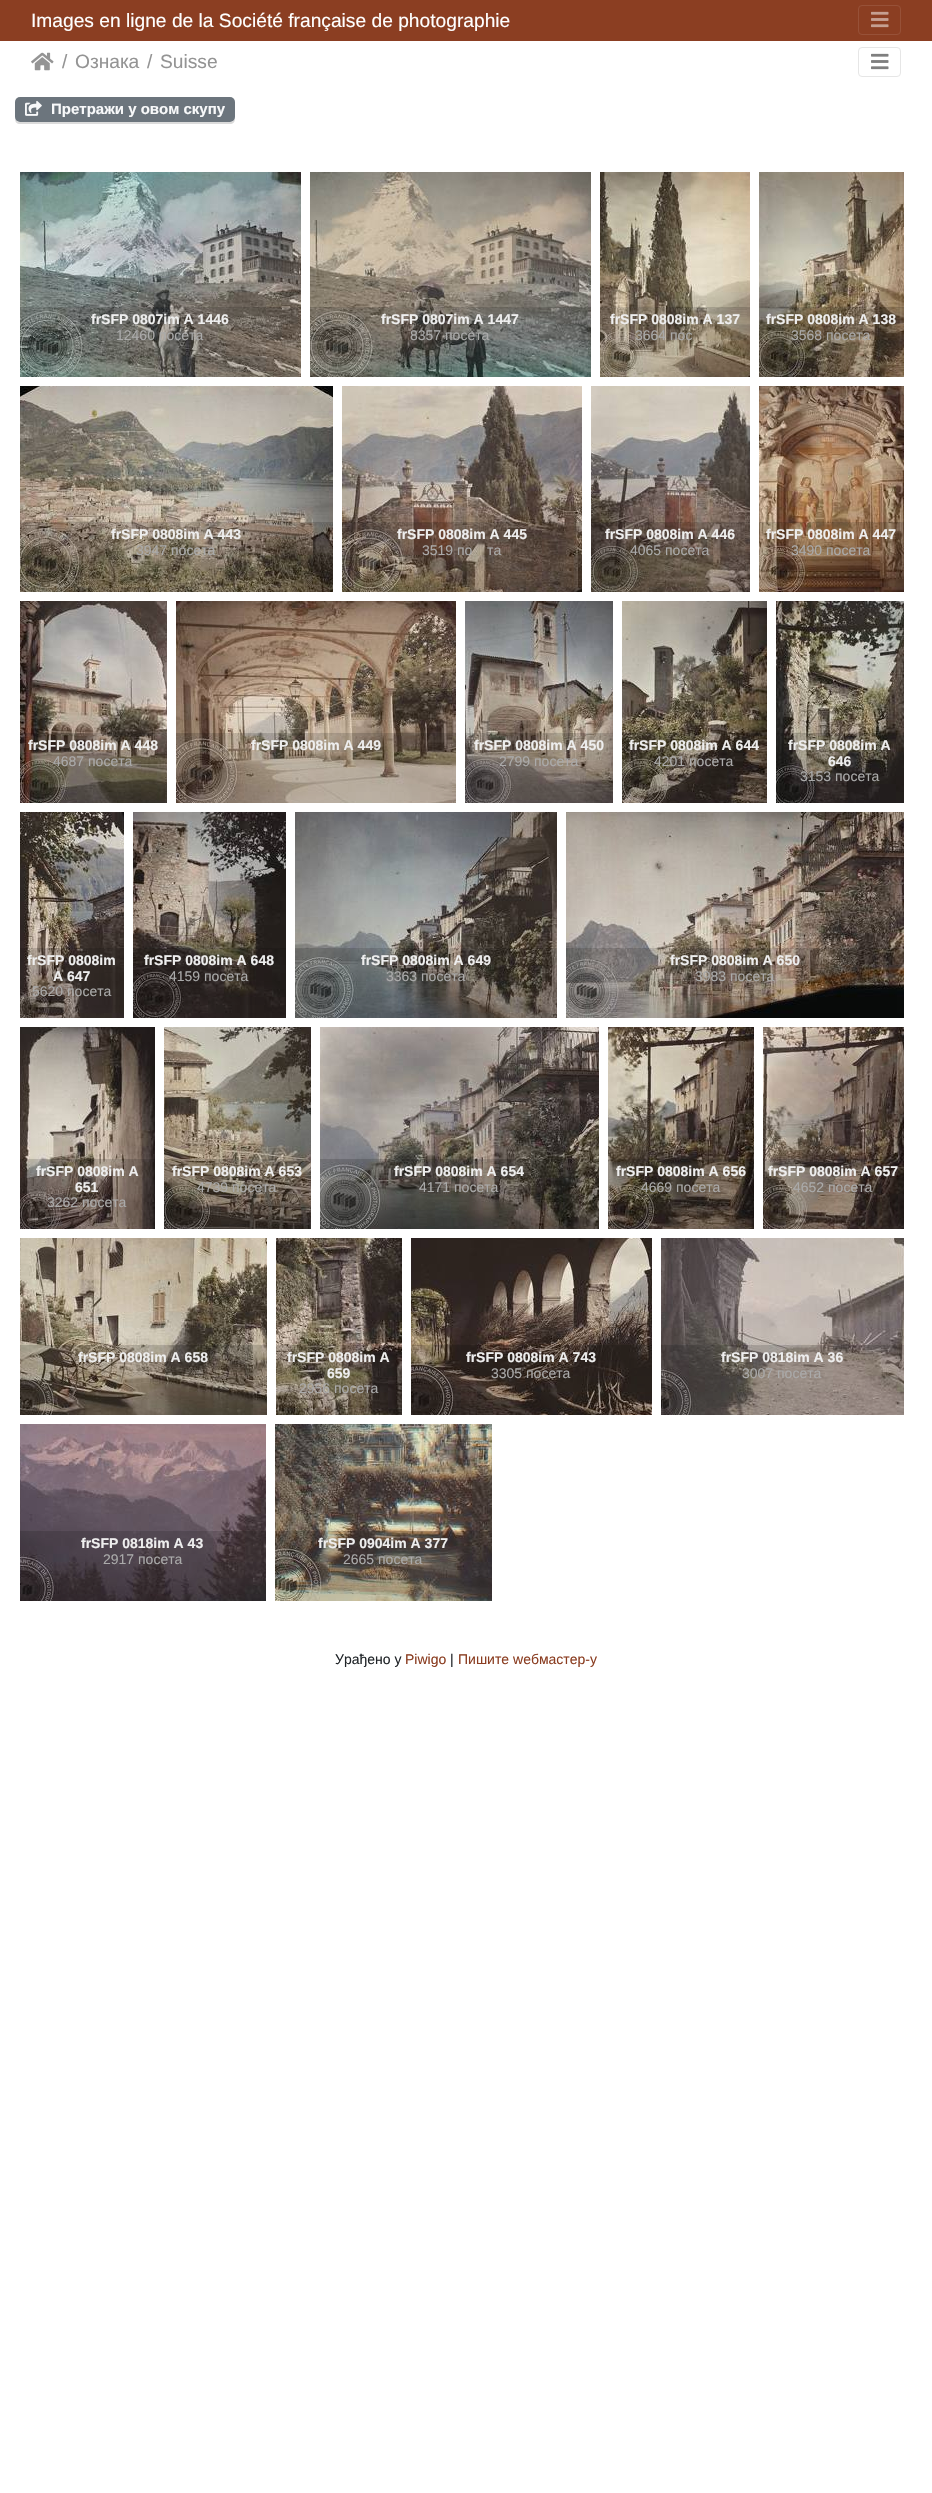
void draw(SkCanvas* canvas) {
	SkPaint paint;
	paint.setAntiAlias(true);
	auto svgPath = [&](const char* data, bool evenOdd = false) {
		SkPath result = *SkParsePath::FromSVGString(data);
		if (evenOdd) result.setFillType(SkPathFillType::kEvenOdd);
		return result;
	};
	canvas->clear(0xffffffff);
	paint.setColor(0xff8b3e22);
	canvas->drawRect(SkRect::MakeXYWH(0, 0, 932, 41), paint);
	SkFont f1(fontMgr->matchFamilyStyle("Liberation Sans", SkFontStyle::Normal()), 19.2);
	f1.setSubpixel(true);
	paint.setColor(0xffffffff);
	canvas->drawString("Images en ligne de la Société française de photographie", 31, 27, f1, paint);
	paint.setStroke(true);
	paint.setStrokeWidth(1);
	paint.setColor(0xff975138);
	canvas->drawRoundRect(SkRect::MakeXYWH(858.5, 5.5, 42, 29), 3.5, 3.5, paint);
	canvas->drawImageRect(SkImages::DeferredFromEncodedData(SkData::MakeFromFileName("img1.png")), SkRect::MakeXYWH(871, 11, 18, 17), SkSamplingOptions());
	canvas->drawImageRect(SkImages::DeferredFromEncodedData(SkData::MakeFromFileName("img2.png")), SkRect::MakeXYWH(31, 52, 23, 19), SkSamplingOptions());
	paint.setStroke(false);
	paint.setColor(0xff949494);
	canvas->drawString("/", 62, 68, f1, paint);
	canvas->drawString("Ознака", 75, 68, f1, paint);
	canvas->drawString("/", 147, 68, f1, paint);
	canvas->drawString("Suisse", 160, 68, f1, paint);
	paint.setStroke(true);
	paint.setColor(0xffe6e6e6);
	canvas->drawRoundRect(SkRect::MakeXYWH(858.5, 47.5, 42, 29), 3.5, 3.5, paint);
	canvas->drawImageRect(SkImages::DeferredFromEncodedData(SkData::MakeFromFileName("img3.png")), SkRect::MakeXYWH(871, 53, 18, 17), SkSamplingOptions());
	paint.setStroke(false);
	paint.setColor(0xffdbdbdb);
	canvas->drawPath(svgPath("M15 117V119C15 122 17 124 20 124H230C233 124 235 122 235 119V117C235 120 233 122 230 122H20C17 122 15 120 15 117Z"), paint);
	paint.setColor(0xff6c757d);
	canvas->drawRoundRect(SkRect::MakeXYWH(15, 97, 220, 25), 5, 5, paint);
	canvas->drawImageRect(SkImages::DeferredFromEncodedData(SkData::MakeFromFileName("img4.png")), SkRect::MakeXYWH(25, 100, 17, 16), SkSamplingOptions());
	SkFont f2(fontMgr->matchFamilyStyle("Liberation Sans", SkFontStyle::Bold()), 15);
	f2.setSubpixel(true);
	paint.setColor(0xfff8f9fa);
	canvas->drawString("Претражи у овом скупу", 51, 114, f2, paint);
	canvas->drawImageRect(SkImages::DeferredFromEncodedData(SkData::MakeFromFileName("img5.png")), SkRect::MakeXYWH(20, 172, 281, 205), SkSamplingOptions());
	paint.setColor(0x26000000);
	canvas->drawRect(SkRect::MakeXYWH(20, 307, 281, 70), paint);
	SkFont f3(fontMgr->matchFamilyStyle("Liberation Sans", SkFontStyle::Bold()), 14);
	f3.setSubpixel(true);
	paint.setColor(0xffeeeeee);
	canvas->drawString("frSFP 0807im A 1446", 91, 324, f3, paint);
	SkFont f4(fontMgr->matchFamilyStyle("Liberation Sans", SkFontStyle::Normal()), 14);
	f4.setSubpixel(true);
	paint.setColor(0xffaaaaaa);
	canvas->drawString("12460 посета", 116, 340, f4, paint);
	canvas->drawImageRect(SkImages::DeferredFromEncodedData(SkData::MakeFromFileName("img6.png")), SkRect::MakeXYWH(310, 172, 281, 205), SkSamplingOptions());
	paint.setColor(0x26000000);
	canvas->drawRect(SkRect::MakeXYWH(310, 307, 281, 70), paint);
	paint.setColor(0xffeeeeee);
	canvas->drawString("frSFP 0807im A 1447", 381, 324, f3, paint);
	paint.setColor(0xffaaaaaa);
	canvas->drawString("8357 посета", 410, 340, f4, paint);
	canvas->drawImageRect(SkImages::DeferredFromEncodedData(SkData::MakeFromFileName("img7.png")), SkRect::MakeXYWH(600, 172, 150, 205), SkSamplingOptions());
	paint.setColor(0x26000000);
	canvas->drawRect(SkRect::MakeXYWH(600, 307, 150, 70), paint);
	paint.setColor(0xffeeeeee);
	canvas->drawString("frSFP 0808im A 137", 610, 324, f3, paint);
	paint.setColor(0xffaaaaaa);
	canvas->drawString("3664 пос", 635, 340, f4, paint);
	canvas->drawImageRect(SkImages::DeferredFromEncodedData(SkData::MakeFromFileName("img8.png")), SkRect::MakeXYWH(759, 172, 145, 205), SkSamplingOptions());
	paint.setColor(0x26000000);
	canvas->drawRect(SkRect::MakeXYWH(759, 307, 145, 70), paint);
	paint.setColor(0xffeeeeee);
	canvas->drawString("frSFP 0808im A 138", 766, 324, f3, paint);
	paint.setColor(0xffaaaaaa);
	canvas->drawString("3568 посета", 791, 340, f4, paint);
	canvas->drawImageRect(SkImages::DeferredFromEncodedData(SkData::MakeFromFileName("img9.png")), SkRect::MakeXYWH(20, 386, 313, 206), SkSamplingOptions());
	paint.setColor(0x26000000);
	canvas->drawRect(SkRect::MakeXYWH(20, 522, 313, 70), paint);
	paint.setColor(0xffeeeeee);
	canvas->drawString("frSFP 0808im A 443", 111, 539, f3, paint);
	paint.setColor(0xffaaaaaa);
	canvas->drawString("3947 посета", 136, 555, f4, paint);
	canvas->drawImageRect(SkImages::DeferredFromEncodedData(SkData::MakeFromFileName("img10.png")), SkRect::MakeXYWH(342, 386, 240, 206), SkSamplingOptions());
	paint.setColor(0x26000000);
	canvas->drawRect(SkRect::MakeXYWH(342, 522, 240, 70), paint);
	paint.setColor(0xffeeeeee);
	canvas->drawString("frSFP 0808im A 445", 397, 539, f3, paint);
	paint.setColor(0xffaaaaaa);
	canvas->drawString("3519 по", 422, 555, f4, paint);
	canvas->drawString("та", 487, 555, f4, paint);
	canvas->drawImageRect(SkImages::DeferredFromEncodedData(SkData::MakeFromFileName("img11.png")), SkRect::MakeXYWH(591, 386, 159, 206), SkSamplingOptions());
	paint.setColor(0x26000000);
	canvas->drawRect(SkRect::MakeXYWH(591, 522, 159, 70), paint);
	paint.setColor(0xffeeeeee);
	canvas->drawString("frSFP 0808im A 446", 605, 539, f3, paint);
	paint.setColor(0xffaaaaaa);
	canvas->drawString("4065 посета", 630, 555, f4, paint);
	canvas->drawImageRect(SkImages::DeferredFromEncodedData(SkData::MakeFromFileName("img12.png")), SkRect::MakeXYWH(759, 386, 145, 206), SkSamplingOptions());
	paint.setColor(0x26000000);
	canvas->drawRect(SkRect::MakeXYWH(759, 522, 145, 70), paint);
	paint.setColor(0xffeeeeee);
	canvas->drawString("frSFP 0808im A 447", 766, 539, f3, paint);
	paint.setColor(0xffaaaaaa);
	canvas->drawString("3490 посета", 791, 555, f4, paint);
	canvas->drawImageRect(SkImages::DeferredFromEncodedData(SkData::MakeFromFileName("img13.png")), SkRect::MakeXYWH(20, 601, 147, 202), SkSamplingOptions());
	paint.setColor(0x26000000);
	canvas->drawRect(SkRect::MakeXYWH(20, 733, 147, 70), paint);
	paint.setColor(0xffeeeeee);
	canvas->drawString("frSFP 0808im A 448", 28, 750, f3, paint);
	paint.setColor(0xffaaaaaa);
	canvas->drawString("4687 посета", 53, 766, f4, paint);
	canvas->drawImageRect(SkImages::DeferredFromEncodedData(SkData::MakeFromFileName("img14.png")), SkRect::MakeXYWH(176, 601, 280, 202), SkSamplingOptions());
	paint.setColor(0x26000000);
	canvas->drawRect(SkRect::MakeXYWH(176, 733, 280, 70), paint);
	paint.setColor(0xffeeeeee);
	canvas->drawString("frSFP 0808im A 449", 251, 750, f3, paint);
	canvas->drawImageRect(SkImages::DeferredFromEncodedData(SkData::MakeFromFileName("img15.png")), SkRect::MakeXYWH(465, 601, 148, 202), SkSamplingOptions());
	paint.setColor(0x26000000);
	canvas->drawRect(SkRect::MakeXYWH(465, 733, 148, 70), paint);
	paint.setColor(0xffeeeeee);
	canvas->drawString("frSFP 0808im A 450", 474, 750, f3, paint);
	paint.setColor(0xffaaaaaa);
	canvas->drawString("2799 посета", 499, 766, f4, paint);
	canvas->drawImageRect(SkImages::DeferredFromEncodedData(SkData::MakeFromFileName("img16.png")), SkRect::MakeXYWH(622, 601, 145, 202), SkSamplingOptions());
	paint.setColor(0x26000000);
	canvas->drawRect(SkRect::MakeXYWH(622, 733, 145, 70), paint);
	paint.setColor(0xffeeeeee);
	canvas->drawString("frSFP 0808im A 644", 629, 750, f3, paint);
	paint.setColor(0xffaaaaaa);
	canvas->drawString("4201 посета", 654, 766, f4, paint);
	canvas->drawImageRect(SkImages::DeferredFromEncodedData(SkData::MakeFromFileName("img17.png")), SkRect::MakeXYWH(776, 601, 128, 202), SkSamplingOptions());
	paint.setColor(0x26000000);
	canvas->drawRect(SkRect::MakeXYWH(776, 733, 128, 70), paint);
	paint.setColor(0xffeeeeee);
	canvas->drawString("frSFP 0808im A", 788, 750, f3, paint);
	canvas->drawString("646", 828, 766, f3, paint);
	paint.setColor(0xffaaaaaa);
	canvas->drawString("3153 посета", 800, 781, f4, paint);
	canvas->drawImageRect(SkImages::DeferredFromEncodedData(SkData::MakeFromFileName("img18.png")), SkRect::MakeXYWH(20, 812, 104, 206), SkSamplingOptions());
	paint.setColor(0x26000000);
	canvas->drawRect(SkRect::MakeXYWH(20, 948, 104, 70), paint);
	paint.setColor(0xffeeeeee);
	canvas->drawString("frSFP 0808im", 27, 965, f3, paint);
	canvas->drawString("A 647", 53, 981, f3, paint);
	paint.setColor(0xffaaaaaa);
	canvas->drawString("5620 посета", 32, 996, f4, paint);
	canvas->drawImageRect(SkImages::DeferredFromEncodedData(SkData::MakeFromFileName("img19.png")), SkRect::MakeXYWH(133, 812, 153, 206), SkSamplingOptions());
	paint.setColor(0x26000000);
	canvas->drawRect(SkRect::MakeXYWH(133, 948, 153, 70), paint);
	paint.setColor(0xffeeeeee);
	canvas->drawString("frSFP 0808im A 648", 144, 965, f3, paint);
	paint.setColor(0xffaaaaaa);
	canvas->drawString("4159 посета", 169, 981, f4, paint);
	canvas->drawImageRect(SkImages::DeferredFromEncodedData(SkData::MakeFromFileName("img20.png")), SkRect::MakeXYWH(295, 812, 262, 206), SkSamplingOptions());
	paint.setColor(0x26000000);
	canvas->drawRect(SkRect::MakeXYWH(295, 948, 262, 70), paint);
	paint.setColor(0xffeeeeee);
	canvas->drawString("frSFP 0808im A 649", 361, 965, f3, paint);
	paint.setColor(0xffaaaaaa);
	canvas->drawString("3363 посета", 386, 981, f4, paint);
	canvas->drawImageRect(SkImages::DeferredFromEncodedData(SkData::MakeFromFileName("img21.png")), SkRect::MakeXYWH(566, 812, 338, 206), SkSamplingOptions());
	paint.setColor(0x26000000);
	canvas->drawRect(SkRect::MakeXYWH(566, 948, 338, 70), paint);
	paint.setColor(0xffeeeeee);
	canvas->drawString("frSFP 0808im A 650", 670, 965, f3, paint);
	paint.setColor(0xffaaaaaa);
	canvas->drawString("3983 посета", 695, 981, f4, paint);
	canvas->drawImageRect(SkImages::DeferredFromEncodedData(SkData::MakeFromFileName("img22.png")), SkRect::MakeXYWH(20, 1027, 135, 202), SkSamplingOptions());
	paint.setColor(0x26000000);
	canvas->drawRect(SkRect::MakeXYWH(20, 1159, 135, 70), paint);
	paint.setColor(0xffeeeeee);
	canvas->drawString("frSFP 0808im A", 36, 1176, f3, paint);
	canvas->drawString("651", 75, 1192, f3, paint);
	paint.setColor(0xffaaaaaa);
	canvas->drawString("3262 посета", 47, 1207, f4, paint);
	canvas->drawImageRect(SkImages::DeferredFromEncodedData(SkData::MakeFromFileName("img23.png")), SkRect::MakeXYWH(164, 1027, 147, 202), SkSamplingOptions());
	paint.setColor(0x26000000);
	canvas->drawRect(SkRect::MakeXYWH(164, 1159, 147, 70), paint);
	paint.setColor(0xffeeeeee);
	canvas->drawString("frSFP 0808im A 653", 172, 1176, f3, paint);
	paint.setColor(0xffaaaaaa);
	canvas->drawString("4739 посета", 197, 1192, f4, paint);
	canvas->drawImageRect(SkImages::DeferredFromEncodedData(SkData::MakeFromFileName("img24.png")), SkRect::MakeXYWH(320, 1027, 279, 202), SkSamplingOptions());
	paint.setColor(0x26000000);
	canvas->drawRect(SkRect::MakeXYWH(320, 1159, 279, 70), paint);
	paint.setColor(0xffeeeeee);
	canvas->drawString("frSFP 0808im A 654", 394, 1176, f3, paint);
	paint.setColor(0xffaaaaaa);
	canvas->drawString("4171 посета", 419, 1192, f4, paint);
	canvas->drawImageRect(SkImages::DeferredFromEncodedData(SkData::MakeFromFileName("img25.png")), SkRect::MakeXYWH(608, 1027, 146, 202), SkSamplingOptions());
	paint.setColor(0x26000000);
	canvas->drawRect(SkRect::MakeXYWH(608, 1159, 146, 70), paint);
	paint.setColor(0xffeeeeee);
	canvas->drawString("frSFP 0808im A 656", 616, 1176, f3, paint);
	paint.setColor(0xffaaaaaa);
	canvas->drawString("4669 посета", 641, 1192, f4, paint);
	canvas->drawImageRect(SkImages::DeferredFromEncodedData(SkData::MakeFromFileName("img26.png")), SkRect::MakeXYWH(763, 1027, 141, 202), SkSamplingOptions());
	paint.setColor(0x26000000);
	canvas->drawRect(SkRect::MakeXYWH(763, 1159, 141, 70), paint);
	paint.setColor(0xffeeeeee);
	canvas->drawString("frSFP 0808im A 657", 768, 1176, f3, paint);
	paint.setColor(0xffaaaaaa);
	canvas->drawString("4652 посета", 793, 1192, f4, paint);
	canvas->drawImageRect(SkImages::DeferredFromEncodedData(SkData::MakeFromFileName("img27.png")), SkRect::MakeXYWH(20, 1238, 247, 177), SkSamplingOptions());
	paint.setColor(0x26000000);
	canvas->drawRect(SkRect::MakeXYWH(20, 1345, 247, 70), paint);
	paint.setColor(0xffeeeeee);
	canvas->drawString("frSFP 0808im A 658", 78, 1362, f3, paint);
	canvas->drawImageRect(SkImages::DeferredFromEncodedData(SkData::MakeFromFileName("img28.png")), SkRect::MakeXYWH(276, 1238, 126, 177), SkSamplingOptions());
	paint.setColor(0x26000000);
	canvas->drawRect(SkRect::MakeXYWH(276, 1345, 126, 70), paint);
	paint.setColor(0xffeeeeee);
	canvas->drawString("frSFP 0808im A", 287, 1362, f3, paint);
	canvas->drawString("659", 327, 1378, f3, paint);
	paint.setColor(0xffaaaaaa);
	canvas->drawString("2956 посета", 299, 1393, f4, paint);
	canvas->drawImageRect(SkImages::DeferredFromEncodedData(SkData::MakeFromFileName("img29.png")), SkRect::MakeXYWH(411, 1238, 241, 177), SkSamplingOptions());
	paint.setColor(0x26000000);
	canvas->drawRect(SkRect::MakeXYWH(411, 1345, 241, 70), paint);
	paint.setColor(0xffeeeeee);
	canvas->drawString("frSFP 0808im A 743", 466, 1362, f3, paint);
	paint.setColor(0xffaaaaaa);
	canvas->drawString("3305 посета", 491, 1378, f4, paint);
	canvas->drawImageRect(SkImages::DeferredFromEncodedData(SkData::MakeFromFileName("img30.png")), SkRect::MakeXYWH(661, 1238, 243, 177), SkSamplingOptions());
	paint.setColor(0x26000000);
	canvas->drawRect(SkRect::MakeXYWH(661, 1345, 243, 70), paint);
	paint.setColor(0xffeeeeee);
	canvas->drawString("frSFP 0818im A 36", 721, 1362, f3, paint);
	paint.setColor(0xffaaaaaa);
	canvas->drawString("3007 посета", 742, 1378, f4, paint);
	canvas->drawImageRect(SkImages::DeferredFromEncodedData(SkData::MakeFromFileName("img31.png")), SkRect::MakeXYWH(20, 1424, 246, 177), SkSamplingOptions());
	paint.setColor(0x26000000);
	canvas->drawRect(SkRect::MakeXYWH(20, 1531, 246, 70), paint);
	paint.setColor(0xffeeeeee);
	canvas->drawString("frSFP 0818im A 43", 81, 1548, f3, paint);
	paint.setColor(0xffaaaaaa);
	canvas->drawString("2917 посета", 103, 1564, f4, paint);
	canvas->drawImageRect(SkImages::DeferredFromEncodedData(SkData::MakeFromFileName("img32.png")), SkRect::MakeXYWH(275, 1424, 217, 177), SkSamplingOptions());
	paint.setColor(0x26000000);
	canvas->drawRect(SkRect::MakeXYWH(275, 1531, 217, 70), paint);
	paint.setColor(0xffeeeeee);
	canvas->drawString("frSFP 0904im A 377", 318, 1548, f3, paint);
	paint.setColor(0xffaaaaaa);
	canvas->drawString("2665 посета", 343, 1564, f4, paint);
	paint.setColor(0xff212529);
	canvas->drawString("Урађено у", 335, 1664, f4, paint);
	paint.setColor(0xff8b3e22);
	canvas->drawString("Piwigo", 405, 1664, f4, paint);
	paint.setColor(0xff212529);
	canvas->drawString("|", 450, 1664, f4, paint);
	paint.setColor(0xff8b3e22);
	canvas->drawString("Пишите wебмастер-у", 458, 1664, f4, paint);
}
